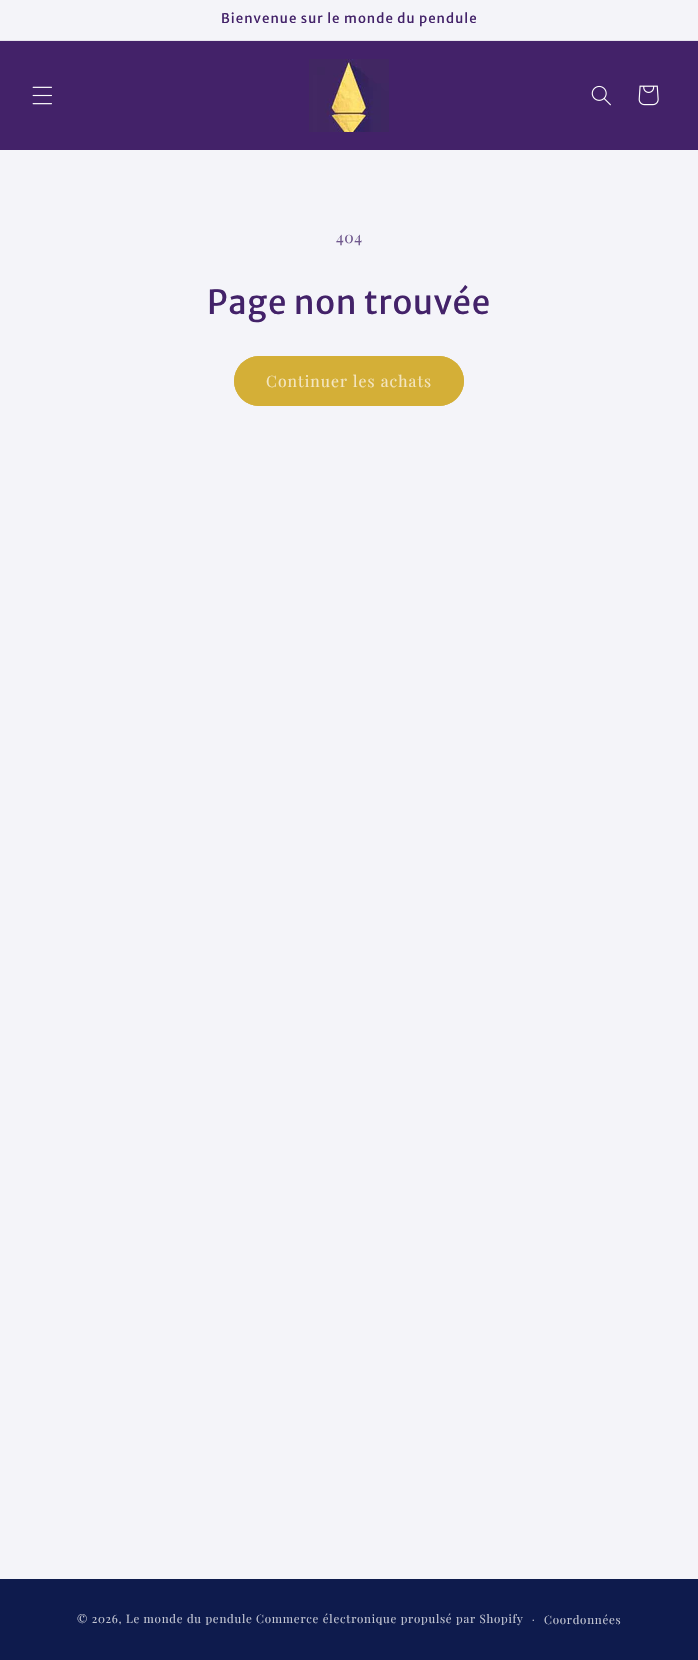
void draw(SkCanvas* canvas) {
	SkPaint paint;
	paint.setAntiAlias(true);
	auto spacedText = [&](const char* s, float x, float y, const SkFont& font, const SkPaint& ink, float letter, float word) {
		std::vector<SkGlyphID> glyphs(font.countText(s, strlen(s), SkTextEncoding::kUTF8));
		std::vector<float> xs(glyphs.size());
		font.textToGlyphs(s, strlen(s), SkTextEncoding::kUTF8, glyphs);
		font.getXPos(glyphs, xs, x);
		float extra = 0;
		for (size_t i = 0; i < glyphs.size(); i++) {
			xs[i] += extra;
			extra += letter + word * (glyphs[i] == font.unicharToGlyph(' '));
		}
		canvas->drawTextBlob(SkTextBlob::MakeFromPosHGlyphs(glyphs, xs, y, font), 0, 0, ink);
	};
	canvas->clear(0xfff4f4f9);
	paint.setColor(0xffe6e3ed);
	canvas->drawRect(SkRect::MakeXYWH(0, 40, 698, 1), paint);
	SkFont f1(fontMgr->matchFamilyStyle("Merriweather Sans", SkFontStyle::Normal()), 13.25);
	f1.setSubpixel(true);
	paint.setColor(0xff432269);
	spacedText("Bienvenue sur le monde du pendule", 221, 23, f1, paint, 1.05, 0);
	canvas->drawRect(SkRect::MakeXYWH(0, 41, 698, 109), paint);
	canvas->drawImageRect(SkImages::DeferredFromEncodedData(SkData::MakeFromFileName("img1.png")), SkRect::MakeXYWH(32, 86, 20, 19), SkSamplingOptions());
	canvas->drawImageRect(SkImages::DeferredFromEncodedData(SkData::MakeFromFileName("img2.png")), SkRect::MakeXYWH(309, 59, 80, 73), SkSamplingOptions());
	canvas->drawImageRect(SkImages::DeferredFromEncodedData(SkData::MakeFromFileName("img3.png")), SkRect::MakeXYWH(591, 85, 20, 21), SkSamplingOptions());
	canvas->drawImageRect(SkImages::DeferredFromEncodedData(SkData::MakeFromFileName("img4.png")), SkRect::MakeXYWH(638, 85, 21, 21), SkSamplingOptions());
	SkFont f2(fontMgr->matchFamilyStyle("Playfair Display", SkFontStyle::Normal()), 15.75);
	f2.setSubpixel(true);
	paint.setColor(0xff6f578d);
	spacedText("404", 336, 243, f2, paint, 0.5, 0);
	SkFont f3(fontMgr->matchFamilyStyle("Merriweather Sans", SkFontStyle::Normal()), 33);
	f3.setSubpixel(true);
	paint.setColor(0xff432269);
	spacedText("Page non trouvée", 207, 314, f3, paint, 0.7, 0);
	paint.setColor(0xffd4af37);
	canvas->drawRoundRect(SkRect::MakeXYWH(234, 356, 230, 50), 25, 25, paint);
	paint.setStroke(true);
	paint.setStrokeWidth(1);
	canvas->drawRoundRect(SkRect::MakeXYWH(234.5, 356.5, 229, 49), 24.5, 24.5, paint);
	paint.setStroke(false);
	paint.setColor(0xfff4e6c1);
	spacedText("Continuer les achats", 266, 387, f2, paint, 1.05, 0);
	paint.setColor(0xff0e1b4d);
	canvas->drawRect(SkRect::MakeXYWH(0, 1579, 698, 81), paint);
	SkFont f4(fontMgr->matchFamilyStyle("Playfair Display", SkFontStyle::Normal()), 11.55);
	f4.setSubpixel(true);
	paint.setColor(0xffc3c6d3);
	spacedText("© 2026, Le monde du pendule Commerce électronique propulsé par Shopify", 77, 1623, f4, paint, 0.73, 0);
	SkFont f5(fontMgr->matchFamilyStyle("Playfair Display", SkFontStyle::Normal()), 10);
	f5.setSubpixel(true);
	spacedText("·", 532, 1623, f5, paint, 0.73, 0);
	spacedText("Coordonnées", 544, 1624, f4, paint, 0.73, 0);
}
